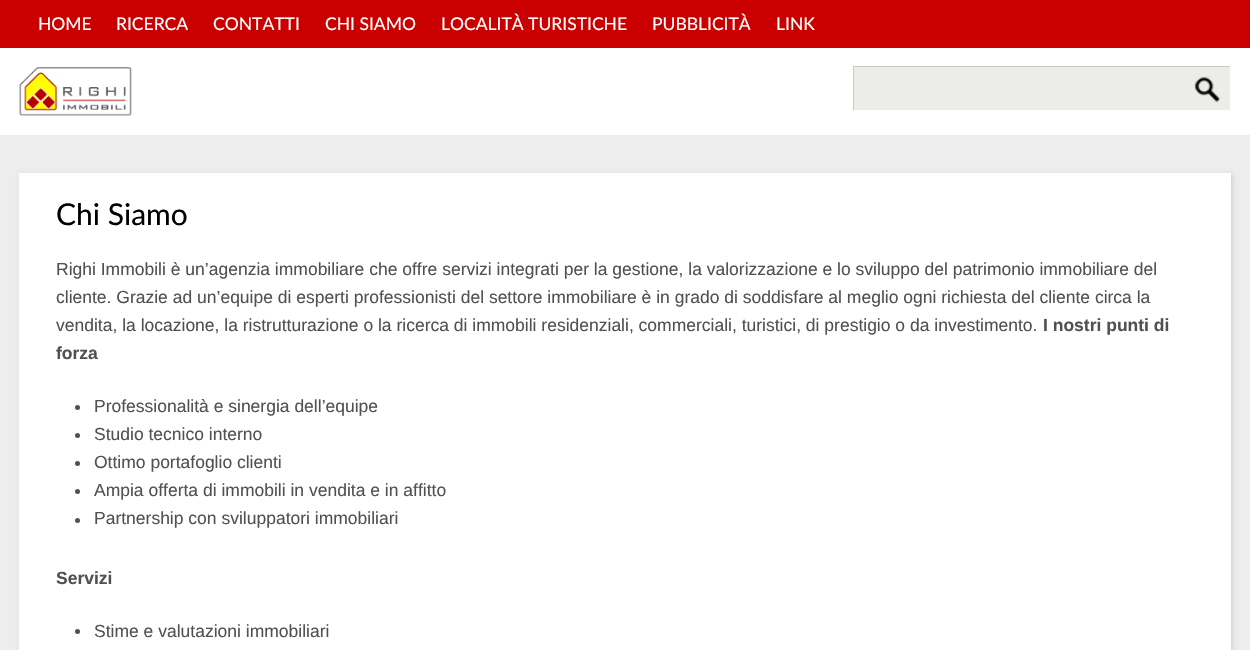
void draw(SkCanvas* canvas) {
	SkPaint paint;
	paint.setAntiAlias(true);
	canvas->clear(0xffededed);
	canvas->drawImageRect(SkImages::DeferredFromEncodedData(SkData::MakeFromFileName("img1.png")), SkRect::MakeXYWH(0, 48, 1250, 87), SkSamplingOptions());
	paint.setColor(0xffca0000);
	canvas->drawRect(SkRect::MakeXYWH(0, 0, 1250, 48), paint);
	SkFont f1(fontMgr->matchFamilyStyle("Lato", SkFontStyle::Normal()), 17.5);
	f1.setSubpixel(true);
	paint.setColor(0xffffffff);
	canvas->drawString("HOME", 38, 30, f1, paint);
	canvas->drawString("RICERCA", 116, 30, f1, paint);
	canvas->drawString("CONTATTI", 213, 30, f1, paint);
	canvas->drawString("CHI SIAMO", 325, 30, f1, paint);
	canvas->drawString("LOCALITÀ TURISTICHE", 441, 30, f1, paint);
	canvas->drawString("PUBBLICITÀ", 652, 30, f1, paint);
	canvas->drawString("LINK", 776, 30, f1, paint);
	canvas->drawImageRect(SkImages::DeferredFromEncodedData(SkData::MakeFromFileName("img2.png")), SkRect::MakeXYWH(19, 67, 113, 49), SkSamplingOptions());
	paint.setColor(0xffecede9);
	canvas->drawRect(SkRect::MakeXYWH(854, 67, 376, 43), paint);
	paint.setColor(0xffc9cac6);
	canvas->drawRect(SkRect::MakeXYWH(853, 66, 378, 1), paint);
	paint.setColor(0xffffffff);
	canvas->drawRect(SkRect::MakeXYWH(1230, 66, 1, 1), paint);
	paint.setColor(0xffc9cac6);
	canvas->drawRect(SkRect::MakeXYWH(853, 66, 1, 44), paint);
	canvas->drawImageRect(SkImages::DeferredFromEncodedData(SkData::MakeFromFileName("img3.png")), SkRect::MakeXYWH(1194, 77, 26, 26), SkSamplingOptions());
	paint.setColor(0x1a000000);
	paint.setMaskFilter(SkMaskFilter::MakeBlur(kNormal_SkBlurStyle, 2));
	canvas->drawRect(SkRect::MakeXYWH(20, 174, 1213, 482), paint);
	paint.setMaskFilter(nullptr);
	paint.setColor(0xffffffff);
	canvas->drawRect(SkRect::MakeXYWH(19, 173, 1212, 477), paint);
	SkFont f2(fontMgr->matchFamilyStyle("Lato", SkFontStyle::Normal()), 30);
	f2.setSubpixel(true);
	paint.setColor(0xff000000);
	canvas->drawString("Chi Siamo", 56, 225, f2, paint);
	SkFont f3(fontMgr->matchFamilyStyle("Liberation Sans", SkFontStyle::Normal()), 17.5);
	f3.setSubpixel(true);
	paint.setColor(0xff515151);
	canvas->drawString("Righi Immobili è un’agenzia immobiliare che offre servizi integrati per la gestione, la valorizzazione e lo sviluppo del patrimonio immobiliare del", 56, 275, f3, paint);
	canvas->drawString("cliente. Grazie ad un’equipe di esperti professionisti del settore immobiliare è in grado di soddisfare al meglio ogni richiesta del cliente circa la", 56, 303, f3, paint);
	canvas->drawString("vendita, la locazione, la ristrutturazione o la ricerca di immobili residenziali, commerciali, turistici, di prestigio o da investimento.", 56, 331, f3, paint);
	SkFont f4(fontMgr->matchFamilyStyle("Liberation Sans", SkFontStyle::Bold()), 17.5);
	f4.setSubpixel(true);
	canvas->drawString("I nostri punti di", 1043, 331, f4, paint);
	canvas->drawString("forza", 56, 359, f4, paint);
	canvas->drawCircle(77.5, 407.5, 2.5, paint);
	canvas->drawString("Professionalità e sinergia dell’equipe", 94, 412, f3, paint);
	canvas->drawCircle(77.5, 435.5, 2.5, paint);
	canvas->drawString("Studio tecnico interno", 94, 440, f3, paint);
	canvas->drawCircle(77.5, 463.5, 2.5, paint);
	canvas->drawString("Ottimo portafoglio clienti", 94, 468, f3, paint);
	canvas->drawCircle(77.5, 491.5, 2.5, paint);
	canvas->drawString("Ampia offerta di immobili in vendita e in affitto", 94, 496, f3, paint);
	canvas->drawCircle(77.5, 520.5, 2.5, paint);
	canvas->drawString("Partnership con sviluppatori immobiliari", 94, 524, f3, paint);
	canvas->drawString("Servizi", 56, 584, f4, paint);
	canvas->drawCircle(77.5, 631.5, 2.5, paint);
	canvas->drawString("Stime e valutazioni immobiliari", 94, 637, f3, paint);
}
